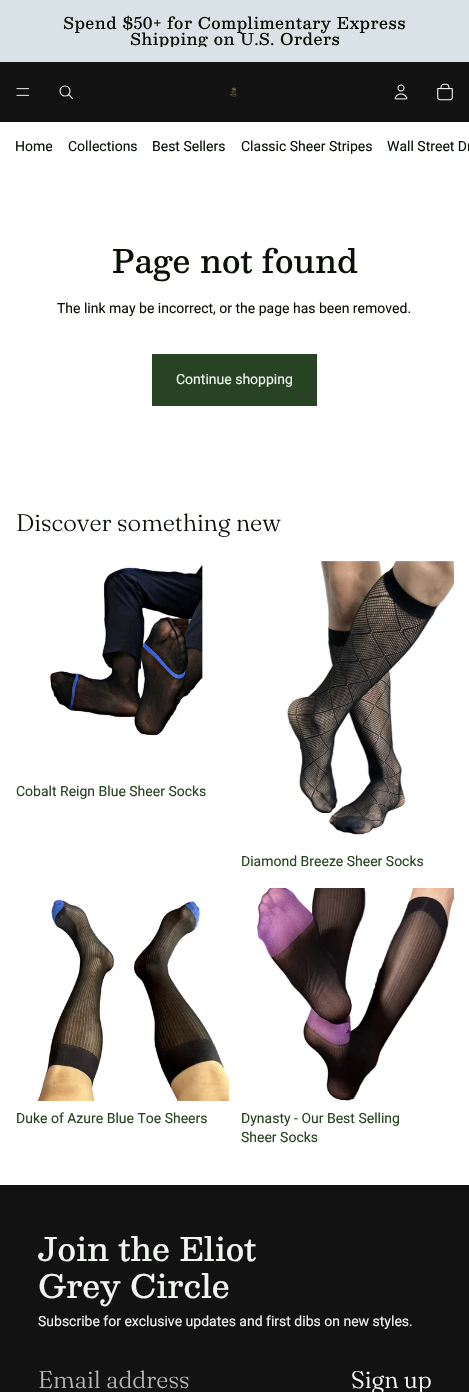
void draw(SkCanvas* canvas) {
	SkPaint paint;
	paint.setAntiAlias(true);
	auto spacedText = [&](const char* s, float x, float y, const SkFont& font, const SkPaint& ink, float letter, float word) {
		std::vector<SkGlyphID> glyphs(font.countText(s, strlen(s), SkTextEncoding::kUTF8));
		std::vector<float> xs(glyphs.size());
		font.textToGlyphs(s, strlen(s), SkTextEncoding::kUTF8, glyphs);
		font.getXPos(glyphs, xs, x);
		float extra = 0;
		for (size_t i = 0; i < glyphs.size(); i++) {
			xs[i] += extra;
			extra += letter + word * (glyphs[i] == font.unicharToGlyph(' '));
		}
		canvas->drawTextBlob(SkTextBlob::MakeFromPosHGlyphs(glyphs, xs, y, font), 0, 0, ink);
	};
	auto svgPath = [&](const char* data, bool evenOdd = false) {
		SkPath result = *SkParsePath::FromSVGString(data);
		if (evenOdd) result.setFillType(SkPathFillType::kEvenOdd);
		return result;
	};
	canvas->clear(0xffffffff);
	paint.setColor(0xffd9e2e6);
	canvas->drawRect(SkRect::MakeXYWH(0, 0, 469, 62), paint);
	SkFont f1(fontMgr->matchFamilyStyle("Besley", SkFontStyle(500, SkFontStyle::kNormal_Width, SkFontStyle::kUpright_Slant)), 16);
	f1.setSubpixel(true);
	paint.setColor(0xff0a1109);
	spacedText("Spend $50+ for Complimentary Express", 63, 29, f1, paint, 0.5, 0);
	canvas->save();
	canvas->clipRect(SkRect::MakeXYWH(44, 15, 381, 32));
	spacedText("Shipping on U.S. Orders", 130, 45, f1, paint, 0.5, 0);
	canvas->restore();
	paint.setColor(0xff121212);
	canvas->drawRect(SkRect::MakeXYWH(0, 62, 469, 60), paint);
	canvas->drawImageRect(SkImages::DeferredFromEncodedData(SkData::MakeFromFileName("img1.png")), SkRect::MakeXYWH(16, 88, 14, 8), SkSamplingOptions());
	paint.setStroke(true);
	paint.setStrokeWidth(1.1);
	paint.setColor(0xfff1f4f0);
	canvas->drawCircle(65, 91, 5, paint);
	paint.setStrokeCap(SkPaint::kRound_Cap);
	paint.setStrokeJoin(SkPaint::kRound_Join);
	canvas->drawPath(svgPath("M69 95L72.5 98.5"), paint);
	canvas->drawImageRect(SkImages::DeferredFromEncodedData(SkData::MakeFromFileName("img2.png")), SkRect::MakeXYWH(229, 87, 9, 10), SkSamplingOptions());
	canvas->drawImageRect(SkImages::DeferredFromEncodedData(SkData::MakeFromFileName("img3.png")), SkRect::MakeXYWH(394, 84, 14, 16), SkSamplingOptions());
	canvas->drawImageRect(SkImages::DeferredFromEncodedData(SkData::MakeFromFileName("img4.png")), SkRect::MakeXYWH(437, 83, 16, 18), SkSamplingOptions());
	SkFont f2(fontMgr->matchFamilyStyle("Roboto", SkFontStyle::Normal()), 14);
	f2.setSubpixel(true);
	paint.setStroke(false);
	paint.setColor(0xff0a1109);
	canvas->drawString("Home", 15, 151, f2, paint);
	canvas->drawString("Collections", 68, 151, f2, paint);
	canvas->drawString("Best Sellers", 152, 151, f2, paint);
	canvas->drawString("Classic Sheer Stripes", 241, 151, f2, paint);
	canvas->drawString("Wall Street Dr", 387, 151, f2, paint);
	SkFont f3(fontMgr->matchFamilyStyle("Besley", SkFontStyle(500, SkFontStyle::kNormal_Width, SkFontStyle::kUpright_Slant)), 32);
	f3.setSubpixel(true);
	canvas->drawString("Page not found", 112, 273, f3, paint);
	canvas->drawString("The link may be incorrect, or the page has been removed.", 57, 313, f2, paint);
	paint.setColor(0xff284323);
	canvas->drawRect(SkRect::MakeXYWH(152, 354, 165, 52), paint);
	paint.setColor(0xfff1f4f0);
	canvas->drawString("Continue shopping", 176, 384, f2, paint);
	SkFont f4(fontMgr->matchFamilyStyle("Fraunces", SkFontStyle(300, SkFontStyle::kNormal_Width, SkFontStyle::kUpright_Slant)), 24);
	f4.setSubpixel(true);
	paint.setColor(0xff0a1109);
	canvas->drawString("Discover something new", 16, 531, f4, paint);
	canvas->drawImageRect(SkImages::DeferredFromEncodedData(SkData::MakeFromFileName("img5.png")), SkRect::MakeXYWH(50, 564, 153, 172), SkSamplingOptions());
	paint.setColor(0xff284323);
	canvas->drawString("Cobalt Reign Blue Sheer Socks", 16, 796, f2, paint);
	canvas->drawImageRect(SkImages::DeferredFromEncodedData(SkData::MakeFromFileName("img6.png")), SkRect::MakeXYWH(287, 561, 167, 274), SkSamplingOptions());
	canvas->drawString("Diamond Breeze Sheer Socks", 241, 866, f2, paint);
	canvas->drawImageRect(SkImages::DeferredFromEncodedData(SkData::MakeFromFileName("img7.png")), SkRect::MakeXYWH(37, 898, 192, 203), SkSamplingOptions());
	canvas->drawString("Duke of Azure Blue Toe Sheers", 16, 1123, f2, paint);
	canvas->drawImageRect(SkImages::DeferredFromEncodedData(SkData::MakeFromFileName("img8.png")), SkRect::MakeXYWH(255, 888, 199, 213), SkSamplingOptions());
	canvas->drawString("Dynasty - Our Best Selling", 241, 1123, f2, paint);
	canvas->drawString("Sheer Socks", 241, 1142, f2, paint);
	paint.setColor(0xff121212);
	canvas->drawRect(SkRect::MakeXYWH(0, 1185, 469, 207), paint);
	paint.setColor(0xfff1f4f0);
	canvas->drawString("Join the Eliot", 38, 1261, f3, paint);
	canvas->drawString("Grey Circle", 38, 1298, f3, paint);
	canvas->drawString("Subscribe for exclusive updates and first dibs on new styles.", 38, 1326, f2, paint);
	paint.setColor(0xffb8b8b8);
	canvas->drawString("Email address", 38, 1388, f4, paint);
	paint.setColor(0xffffffff);
	canvas->drawString("Sign up", 351, 1388, f4, paint);
}
